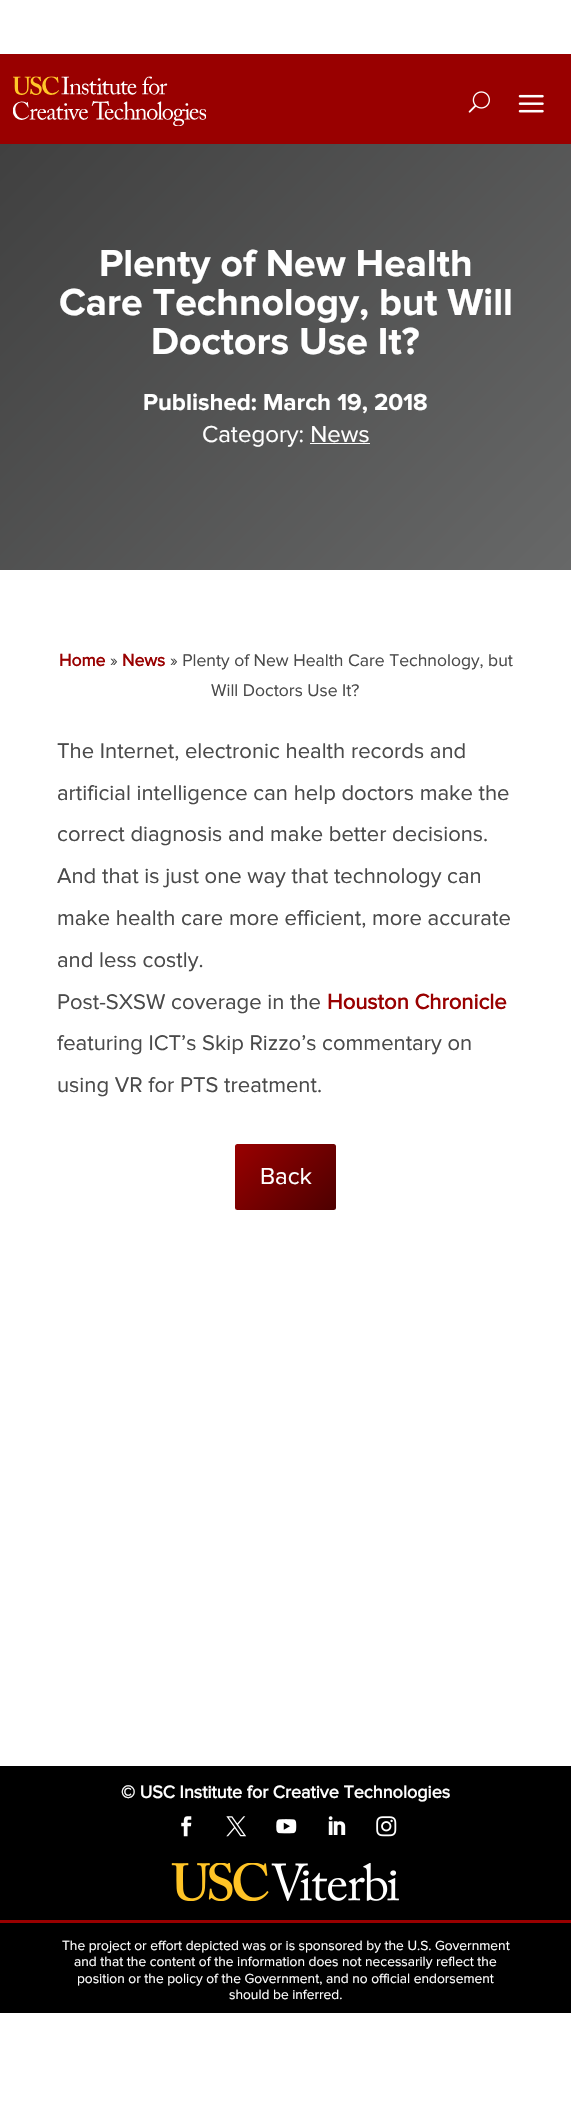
void draw(SkCanvas* canvas) {
	SkPaint paint;
	paint.setAntiAlias(true);
	canvas->clear(0xffffffff);
	paint.setColor(0xff990000);
	canvas->drawRect(SkRect::MakeXYWH(0, 54, 571, 90), paint);
	canvas->drawImageRect(SkImages::DeferredFromEncodedData(SkData::MakeFromFileName("img1.png")), SkRect::MakeXYWH(13, 76, 193, 50), SkSamplingOptions());
	canvas->drawImageRect(SkImages::DeferredFromEncodedData(SkData::MakeFromFileName("img2.png")), SkRect::MakeXYWH(468, 91, 22, 22), SkSamplingOptions());
	canvas->drawImageRect(SkImages::DeferredFromEncodedData(SkData::MakeFromFileName("img3.png")), SkRect::MakeXYWH(518, 94, 26, 19), SkSamplingOptions());
	{
		const SkColor colors[] = {0xff404040, 0xff676868};
		const float stops[] = {0, 1};
		const SkPoint ends[] = {{36, 108}, {535, 606}};
		paint.setShader(SkGradientShader::MakeLinear(ends, colors, stops, 2, SkTileMode::kClamp));
		paint.setAlpha(255);
	}
	canvas->drawRect(SkRect::MakeXYWH(0, 144, 571, 426), paint);
	SkFont f1(fontMgr->matchFamilyStyle("Proxima Nova", SkFontStyle::Bold()), 39);
	f1.setSubpixel(true);
	paint.setShader(nullptr);
	paint.setColor(0xffffffff);
	canvas->drawString("Plenty of New Health", 99, 276, f1, paint);
	canvas->drawString("Care Technology, but Will", 59, 315, f1, paint);
	canvas->drawString("Doctors Use It?", 151, 354, f1, paint);
	SkFont f2(fontMgr->matchFamilyStyle("Proxima Nova", SkFontStyle::Bold()), 24);
	f2.setSubpixel(true);
	canvas->drawString("Published: March 19, 2018", 143, 410, f2, paint);
	SkFont f3(fontMgr->matchFamilyStyle("Proxima Nova", SkFontStyle::Normal()), 24);
	f3.setSubpixel(true);
	canvas->drawString("Category: News", 202, 442, f3, paint);
	canvas->drawRect(SkRect::MakeXYWH(310, 443, 60, 1), paint);
	SkFont f4(fontMgr->matchFamilyStyle("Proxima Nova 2", SkFontStyle::Bold()), 17.5);
	f4.setSubpixel(true);
	paint.setColor(0xff990000);
	canvas->drawString("Home", 59, 666, f4, paint);
	SkFont f5(fontMgr->matchFamilyStyle("Proxima Nova", SkFontStyle::Normal()), 17.5);
	f5.setSubpixel(true);
	paint.setColor(0xff4a4a4a);
	canvas->drawString("»", 110, 666, f5, paint);
	paint.setColor(0xff990000);
	canvas->drawString("News", 122, 666, f4, paint);
	paint.setColor(0xff4a4a4a);
	canvas->drawString("» Plenty of New Health Care Technology, but", 170, 666, f5, paint);
	canvas->drawString("Will Doctors Use It?", 211, 696, f5, paint);
	SkFont f6(fontMgr->matchFamilyStyle("Proxima Nova", SkFontStyle::Normal()), 22);
	f6.setSubpixel(true);
	canvas->drawString("The Internet, electronic health records and", 57, 758, f6, paint);
	canvas->drawString("artificial intelligence can help doctors make the", 57, 800, f6, paint);
	canvas->drawString("correct diagnosis and make better decisions.", 57, 841, f6, paint);
	canvas->drawString("And that is just one way that technology can", 57, 883, f6, paint);
	canvas->drawString("make health care more efficient, more accurate", 57, 925, f6, paint);
	canvas->drawString("and less costly.", 57, 967, f6, paint);
	canvas->drawString("Post-SXSW coverage in the", 57, 1009, f6, paint);
	SkFont f7(fontMgr->matchFamilyStyle("Proxima Nova 2", SkFontStyle::Bold()), 22);
	f7.setSubpixel(true);
	paint.setColor(0xff990000);
	canvas->drawString("Houston Chronicle", 327, 1009, f7, paint);
	paint.setColor(0xff4a4a4a);
	canvas->drawString("featuring ICT’s Skip Rizzo’s commentary on", 57, 1050, f6, paint);
	canvas->drawString("using VR for PTS treatment.", 57, 1092, f6, paint);
	{
		const SkColor colors[] = {0xff990000, 0xff4d0000};
		const float stops[] = {0, 1};
		const SkPoint ends[] = {{244, 1135}, {328, 1219}};
		paint.setShader(SkGradientShader::MakeLinear(ends, colors, stops, 2, SkTileMode::kClamp));
		paint.setAlpha(255);
	}
	canvas->drawRoundRect(SkRect::MakeXYWH(235, 1144, 101, 66), 2.5, 2.5, paint);
	paint.setShader(nullptr);
	paint.setColor(0xffffffff);
	canvas->drawString("Back", 260, 1184, f3, paint);
	paint.setColor(0xff000000);
	canvas->drawRect(SkRect::MakeXYWH(0, 1766, 571, 154), paint);
	SkFont f8(fontMgr->matchFamilyStyle("Proxima Nova 2", SkFontStyle::Bold()), 18);
	f8.setSubpixel(true);
	paint.setColor(0xffffffff);
	canvas->drawString("© USC Institute for Creative Technologies", 121, 1798, f8, paint);
	canvas->drawImageRect(SkImages::DeferredFromEncodedData(SkData::MakeFromFileName("img4.png")), SkRect::MakeXYWH(181, 1816, 11, 21), SkSamplingOptions());
	canvas->drawImageRect(SkImages::DeferredFromEncodedData(SkData::MakeFromFileName("img5.png")), SkRect::MakeXYWH(226, 1816, 21, 21), SkSamplingOptions());
	canvas->drawImageRect(SkImages::DeferredFromEncodedData(SkData::MakeFromFileName("img6.png")), SkRect::MakeXYWH(276, 1819, 21, 15), SkSamplingOptions());
	canvas->drawImageRect(SkImages::DeferredFromEncodedData(SkData::MakeFromFileName("img7.png")), SkRect::MakeXYWH(328, 1816, 18, 19), SkSamplingOptions());
	canvas->drawImageRect(SkImages::DeferredFromEncodedData(SkData::MakeFromFileName("img8.png")), SkRect::MakeXYWH(376, 1816, 21, 21), SkSamplingOptions());
	canvas->drawImageRect(SkImages::DeferredFromEncodedData(SkData::MakeFromFileName("img9.png")), SkRect::MakeXYWH(171, 1863, 228, 38), SkSamplingOptions());
	paint.setColor(0xff000000);
	canvas->drawRect(SkRect::MakeXYWH(0, 1923, 571, 90), paint);
	paint.setColor(0xff990000);
	canvas->drawRect(SkRect::MakeXYWH(0, 1920, 571, 3), paint);
	SkFont f9(fontMgr->matchFamilyStyle("Proxima Nova", SkFontStyle::Normal()), 13.75);
	f9.setSubpixel(true);
	paint.setColor(0xffffffff);
	canvas->drawString("The project or effort depicted was or is sponsored by the U.S. Government", 62, 1950, f9, paint);
	canvas->drawString("and that the content of the information does not necessarily reflect the", 74, 1966, f9, paint);
	canvas->drawString("position or the policy of the Government, and no official endorsement", 77, 1983, f9, paint);
	canvas->drawString("should be inferred.", 229, 1999, f9, paint);
}
